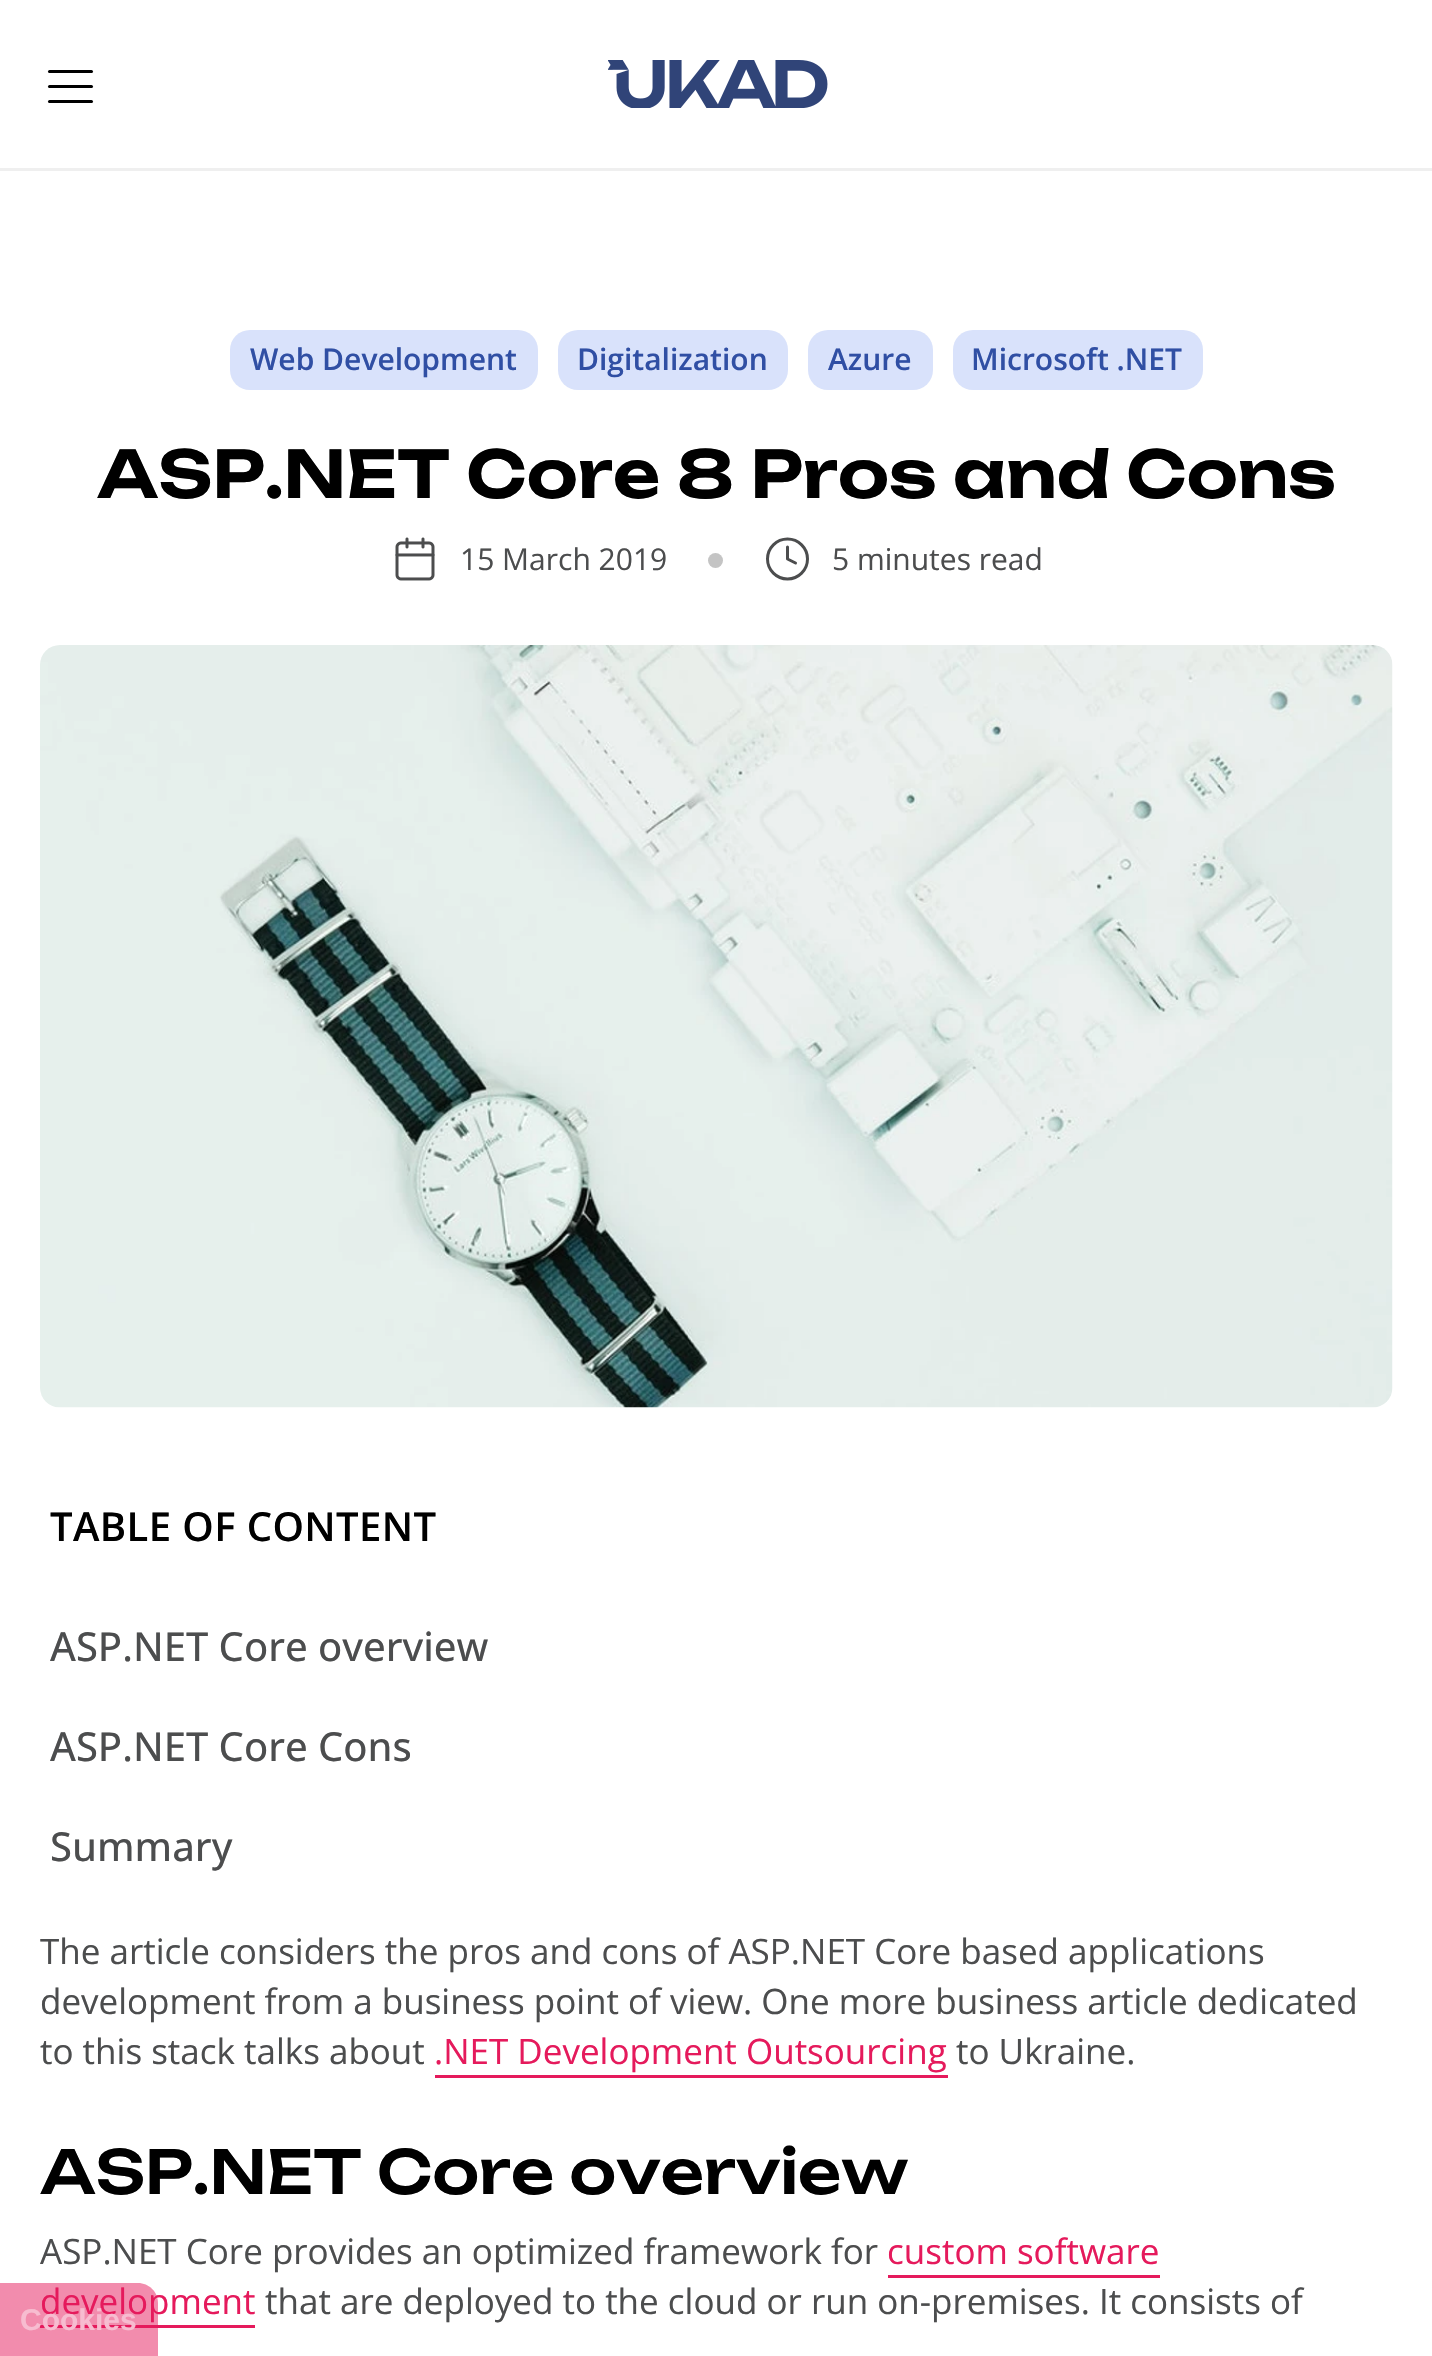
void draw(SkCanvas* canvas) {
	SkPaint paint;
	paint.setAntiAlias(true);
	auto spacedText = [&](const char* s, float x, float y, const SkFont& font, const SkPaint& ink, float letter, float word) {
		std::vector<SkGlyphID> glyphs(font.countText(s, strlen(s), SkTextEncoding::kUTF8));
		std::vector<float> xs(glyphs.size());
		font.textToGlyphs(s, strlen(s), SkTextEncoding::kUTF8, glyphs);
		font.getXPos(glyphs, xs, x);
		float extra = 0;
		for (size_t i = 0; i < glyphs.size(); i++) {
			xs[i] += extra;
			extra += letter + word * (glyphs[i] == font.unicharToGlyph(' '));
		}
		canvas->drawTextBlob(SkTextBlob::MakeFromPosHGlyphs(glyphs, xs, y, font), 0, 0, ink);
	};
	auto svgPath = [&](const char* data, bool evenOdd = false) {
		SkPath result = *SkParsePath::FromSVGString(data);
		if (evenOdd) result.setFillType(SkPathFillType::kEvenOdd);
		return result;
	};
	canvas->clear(0xffffffff);
	paint.setColor(0xffefefef);
	canvas->drawRect(SkRect::MakeXYWH(0, 168, 1432, 3), paint);
	paint.setColor(0xff000000);
	canvas->drawRoundRect(SkRect::MakeXYWH(48, 70, 45, 3), 1.5, 1.5, paint);
	canvas->drawRoundRect(SkRect::MakeXYWH(48, 85, 45, 3), 1.5, 1.5, paint);
	canvas->drawRoundRect(SkRect::MakeXYWH(48, 100, 45, 3), 1.5, 1.5, paint);
	canvas->drawImageRect(SkImages::DeferredFromEncodedData(SkData::MakeFromFileName("img1.png")), SkRect::MakeXYWH(608, 60, 220, 48), SkSamplingOptions());
	paint.setColor(0xffd9e2fb);
	canvas->drawRoundRect(SkRect::MakeXYWH(230, 330, 308, 60), 20, 20, paint);
	SkFont f1(fontMgr->matchFamilyStyle("Open Sans", SkFontStyle(600, SkFontStyle::kNormal_Width, SkFontStyle::kUpright_Slant)), 30);
	f1.setSubpixel(true);
	paint.setColor(0xff304fa4);
	canvas->drawString("Web Development", 250, 370, f1, paint);
	paint.setColor(0xffd9e2fb);
	canvas->drawRoundRect(SkRect::MakeXYWH(558, 330, 230, 60), 20, 20, paint);
	paint.setColor(0xff304fa4);
	canvas->drawString("Digitalization", 577, 370, f1, paint);
	paint.setColor(0xffd9e2fb);
	canvas->drawRoundRect(SkRect::MakeXYWH(808, 330, 125, 60), 20, 20, paint);
	paint.setColor(0xff304fa4);
	canvas->drawString("Azure", 828, 370, f1, paint);
	paint.setColor(0xffd9e2fb);
	canvas->drawRoundRect(SkRect::MakeXYWH(953, 330, 250, 60), 20, 20, paint);
	paint.setColor(0xff304fa4);
	canvas->drawString("Microsoft .NET", 971, 370, f1, paint);
	SkFont f2(fontMgr->matchFamilyStyle("Unbounded", SkFontStyle(600, SkFontStyle::kNormal_Width, SkFontStyle::kUpright_Slant)), 65);
	f2.setSubpixel(true);
	paint.setColor(0xff000000);
	canvas->drawString("ASP.NET Core 8 Pros and Cons", 97, 498, f2, paint);
	canvas->drawImageRect(SkImages::DeferredFromEncodedData(SkData::MakeFromFileName("img2.png")), SkRect::MakeXYWH(395, 537, 40, 44), SkSamplingOptions());
	SkFont f3(fontMgr->matchFamilyStyle("Open Sans", SkFontStyle::Normal()), 30);
	f3.setSubpixel(true);
	paint.setColor(0xff4c4d4e);
	canvas->drawString("15 March 2019", 460, 570, f3, paint);
	paint.setColor(0xffc4c4c4);
	canvas->drawCircle(715.5, 560.5, 7.5, paint);
	paint.setStroke(true);
	paint.setStrokeWidth(3);
	paint.setStrokeCap(SkPaint::kRound_Cap);
	paint.setStrokeJoin(SkPaint::kRound_Join);
	paint.setColor(0xff4c4d4e);
	canvas->drawPath(svgPath("M787.5 579C798.5 579 807.5 570 807.5 559C807.5 548 798.5 539 787.5 539C776.5 539 767.5 548 767.5 559C767.5 570 776.5 579 787.5 579ZM787.5 547V559L795.5 563"), paint);
	paint.setStroke(false);
	canvas->drawString("5 minutes read", 832, 570, f3, paint);
	canvas->drawImageRect(SkImages::DeferredFromEncodedData(SkData::MakeFromFileName("img3.png")), SkRect::MakeXYWH(40, 645, 1353, 763), SkSamplingOptions());
	SkFont f4(fontMgr->matchFamilyStyle("Open Sans", SkFontStyle(600, SkFontStyle::kNormal_Width, SkFontStyle::kUpright_Slant)), 40);
	f4.setSubpixel(true);
	paint.setColor(0xff000000);
	spacedText("TABLE OF CONTENT", 50, 1541, f4, paint, 0.4, 0);
	SkFont f5(fontMgr->matchFamilyStyle("Open Sans", SkFontStyle(500, SkFontStyle::kNormal_Width, SkFontStyle::kUpright_Slant)), 40);
	f5.setSubpixel(true);
	paint.setColor(0xff4c4d4e);
	canvas->drawString("ASP.NET Core overview", 50, 1661, f5, paint);
	canvas->drawString("ASP.NET Core Cons", 50, 1761, f5, paint);
	canvas->drawString("Summary", 50, 1861, f5, paint);
	SkFont f6(fontMgr->matchFamilyStyle("Open Sans", SkFontStyle::Normal()), 35);
	f6.setSubpixel(true);
	canvas->drawString("The article considers the pros and cons of ASP.NET Core based applications", 40, 1964, f6, paint);
	canvas->drawString("development from a business point of view. One more business article dedicated", 40, 2014, f6, paint);
	canvas->drawString("to this stack talks about", 40, 2064, f6, paint);
	paint.setColor(0xffe51a5c);
	canvas->drawString(".NET Development Outsourcing", 434, 2064, f6, paint);
	canvas->drawRect(SkRect::MakeXYWH(435, 2075, 513, 3), paint);
	paint.setColor(0xff4c4d4e);
	canvas->drawString("to Ukraine.", 956, 2064, f6, paint);
	SkFont f7(fontMgr->matchFamilyStyle("Unbounded", SkFontStyle(500, SkFontStyle::kNormal_Width, SkFontStyle::kUpright_Slant)), 60);
	f7.setSubpixel(true);
	paint.setColor(0xff000000);
	canvas->drawString("ASP.NET Core overview", 40, 2194, f7, paint);
	paint.setColor(0xff4c4d4e);
	canvas->drawString("ASP.NET Core provides an optimized framework for", 40, 2264, f6, paint);
	paint.setColor(0xffe51a5c);
	canvas->drawString("custom software", 887, 2264, f6, paint);
	canvas->drawRect(SkRect::MakeXYWH(888, 2275, 272, 3), paint);
	canvas->drawString("development", 40, 2314, f6, paint);
	canvas->drawRect(SkRect::MakeXYWH(40, 2325, 215, 3), paint);
	paint.setColor(0xff4c4d4e);
	canvas->drawString("that are deployed to the cloud or run on-premises. It consists of", 265, 2314, f6, paint);
	paint.setColor(0x80e51a5c);
	canvas->drawPath(svgPath("M0 2283H138C149 2283 158 2292 158 2303V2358H0Z"), paint);
	SkFont f8(fontMgr->matchFamilyStyle("Liberation Sans", SkFontStyle::Bold()), 30);
	f8.setSubpixel(true);
	paint.setColor(0xfff7bcd0);
	canvas->drawString("Cookies", 20, 2330, f8, paint);
}
